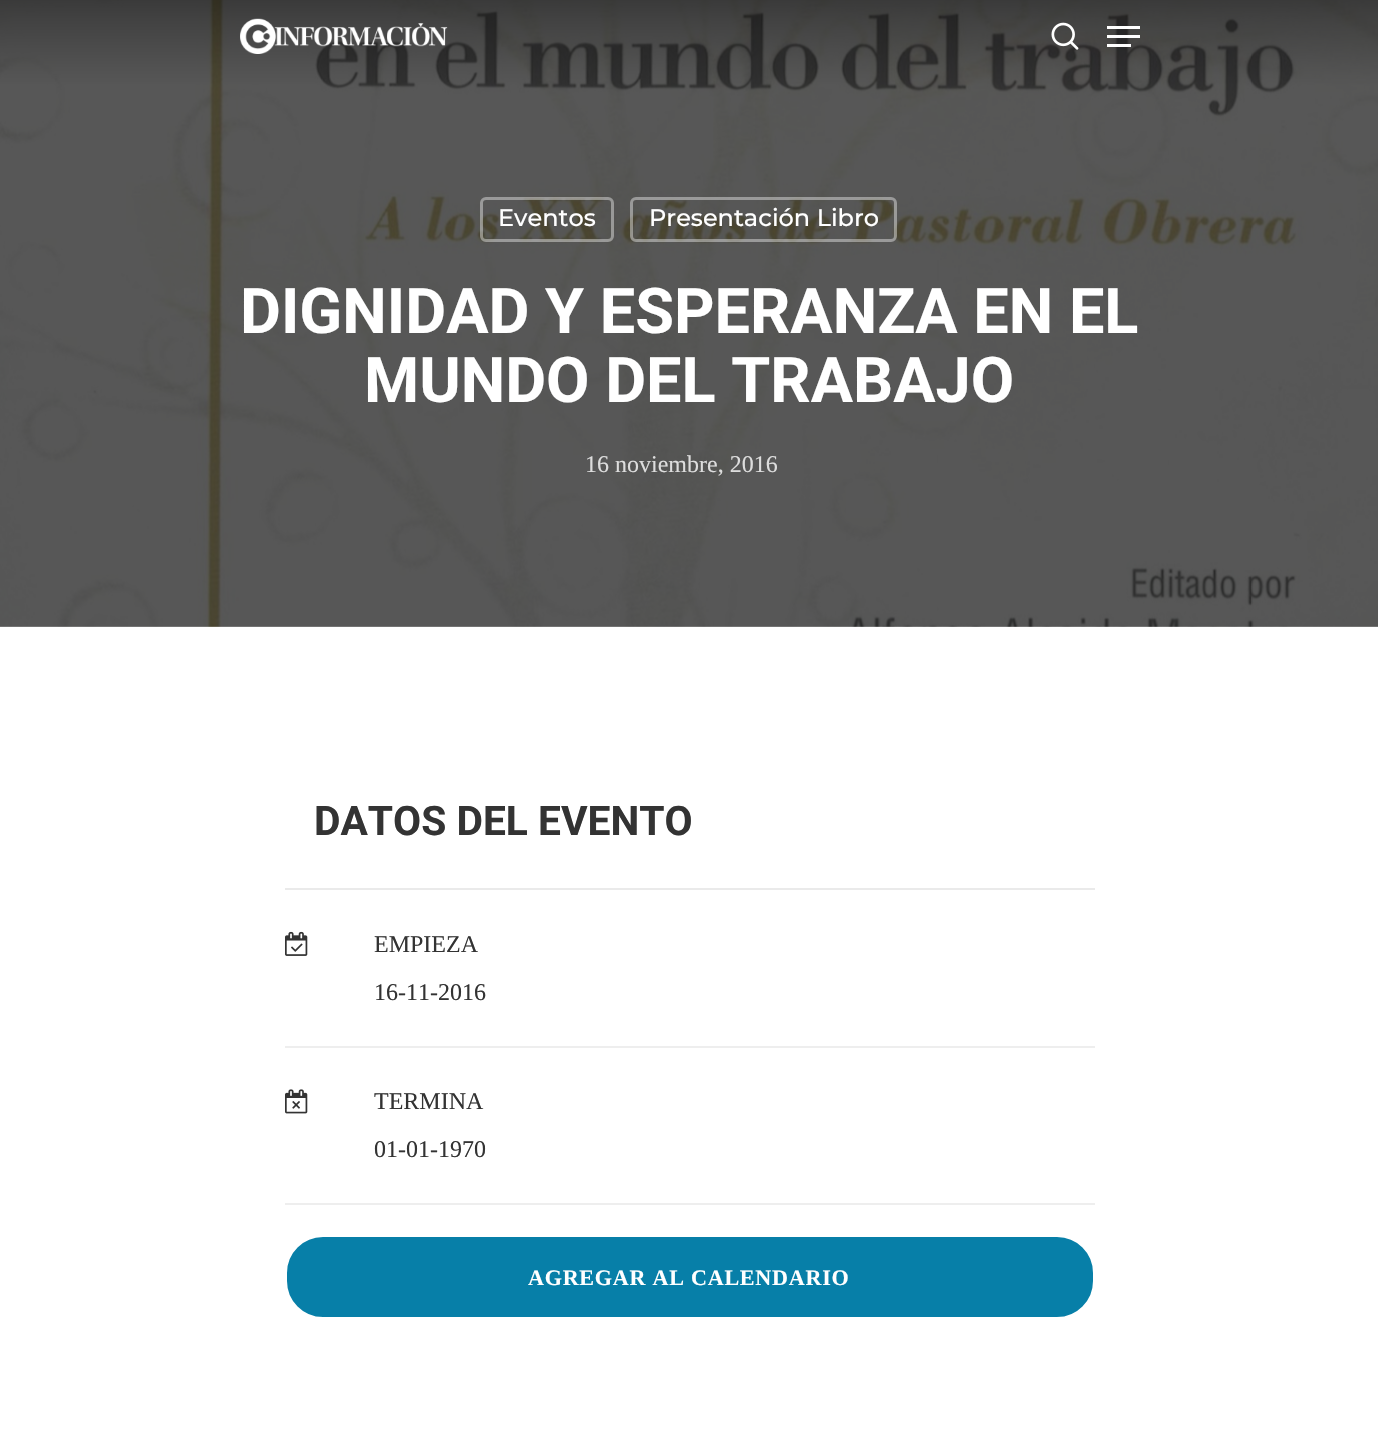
void draw(SkCanvas* canvas) {
	SkPaint paint;
	paint.setAntiAlias(true);
	auto spacedText = [&](const char* s, float x, float y, const SkFont& font, const SkPaint& ink, float letter, float word) {
		std::vector<SkGlyphID> glyphs(font.countText(s, strlen(s), SkTextEncoding::kUTF8));
		std::vector<float> xs(glyphs.size());
		font.textToGlyphs(s, strlen(s), SkTextEncoding::kUTF8, glyphs);
		font.getXPos(glyphs, xs, x);
		float extra = 0;
		for (size_t i = 0; i < glyphs.size(); i++) {
			xs[i] += extra;
			extra += letter + word * (glyphs[i] == font.unicharToGlyph(' '));
		}
		canvas->drawTextBlob(SkTextBlob::MakeFromPosHGlyphs(glyphs, xs, y, font), 0, 0, ink);
	};
	canvas->clear(0xffffffff);
	canvas->drawImageRect(SkImages::DeferredFromEncodedData(SkData::MakeFromFileName("img3.png")), SkRect::MakeXYWH(0, 0, 1378, 627), SkSamplingOptions());
	canvas->drawImageRect(SkImages::DeferredFromEncodedData(SkData::MakeFromFileName("img1.png")), SkRect::MakeXYWH(240, 18, 208, 36), SkSamplingOptions());
	canvas->drawImageRect(SkImages::DeferredFromEncodedData(SkData::MakeFromFileName("img2.png")), SkRect::MakeXYWH(1051, 22, 28, 28), SkSamplingOptions());
	paint.setColor(0xffffffff);
	canvas->drawRect(SkRect::MakeXYWH(1107, 26, 33, 3), paint);
	canvas->drawRect(SkRect::MakeXYWH(1107, 44, 24, 3), paint);
	canvas->drawRect(SkRect::MakeXYWH(1107, 35, 33, 3), paint);
	paint.setStroke(true);
	paint.setStrokeWidth(3);
	paint.setColor(0x66ffffff);
	canvas->drawRoundRect(SkRect::MakeXYWH(481.5, 198.5, 131, 42), 4.5, 4.5, paint);
	SkFont f1(fontMgr->matchFamilyStyle("Montserrat", SkFontStyle(100, SkFontStyle::kNormal_Width, SkFontStyle::kUpright_Slant)), 24);
	f1.setSubpixel(true);
	paint.setStroke(false);
	paint.setColor(0xffffffff);
	canvas->drawString("Eventos", 498, 226, f1, paint);
	paint.setStroke(true);
	paint.setColor(0x66ffffff);
	canvas->drawRoundRect(SkRect::MakeXYWH(631.5, 198.5, 264, 42), 4.5, 4.5, paint);
	paint.setStroke(false);
	paint.setColor(0xffffffff);
	canvas->drawString("Presentación Libro", 649, 226, f1, paint);
	SkFont f2(fontMgr->matchFamilyStyle("Roboto", SkFontStyle::Bold()), 63);
	f2.setSubpixel(true);
	canvas->drawString("DIGNIDAD Y ESPERANZA EN EL", 240, 333, f2, paint);
	canvas->drawString("MUNDO DEL TRABAJO", 364, 402, f2, paint);
	SkFont f3(fontMgr->matchFamilyStyle("Liberation Serif", SkFontStyle::Normal()), 24);
	f3.setSubpixel(true);
	paint.setColor(0xffdddddd);
	canvas->drawString("16 noviembre, 2016", 585, 472, f3, paint);
	paint.setColor(0xffeaeaea);
	canvas->drawRect(SkRect::MakeXYWH(285, 888, 810, 2), paint);
	SkFont f4(fontMgr->matchFamilyStyle("Roboto", SkFontStyle::Bold()), 40.75);
	f4.setSubpixel(true);
	paint.setColor(0xff333333);
	canvas->drawString("DATOS DEL EVENTO", 314, 835, f4, paint);
	paint.setColor(0xffeeeeee);
	canvas->drawRect(SkRect::MakeXYWH(285, 1046, 810, 2), paint);
	canvas->drawImageRect(SkImages::DeferredFromEncodedData(SkData::MakeFromFileName("img4.png")), SkRect::MakeXYWH(285, 931, 23, 25), SkSamplingOptions());
	paint.setColor(0xff333333);
	canvas->drawString("EMPIEZA", 374, 952, f3, paint);
	canvas->drawString("16-11-2016", 374, 1000, f3, paint);
	paint.setColor(0xffeeeeee);
	canvas->drawRect(SkRect::MakeXYWH(285, 1203, 810, 2), paint);
	canvas->drawImageRect(SkImages::DeferredFromEncodedData(SkData::MakeFromFileName("img5.png")), SkRect::MakeXYWH(285, 1089, 23, 25), SkSamplingOptions());
	paint.setColor(0xff333333);
	canvas->drawString("TERMINA", 374, 1109, f3, paint);
	canvas->drawString("01-01-1970", 374, 1157, f3, paint);
	paint.setColor(0xff077fa8);
	canvas->drawRoundRect(SkRect::MakeXYWH(286, 1236, 808, 82), 37, 37, paint);
	paint.setStroke(true);
	paint.setStrokeWidth(2);
	paint.setColor(0xffffffff);
	canvas->drawRoundRect(SkRect::MakeXYWH(286, 1236, 808, 82), 37, 37, paint);
	SkFont f5(fontMgr->matchFamilyStyle("Liberation Serif", SkFontStyle::Bold()), 22.1);
	f5.setSubpixel(true);
	paint.setStroke(false);
	spacedText("AGREGAR AL CALENDARIO", 528, 1285, f5, paint, 0.75, 0);
}
